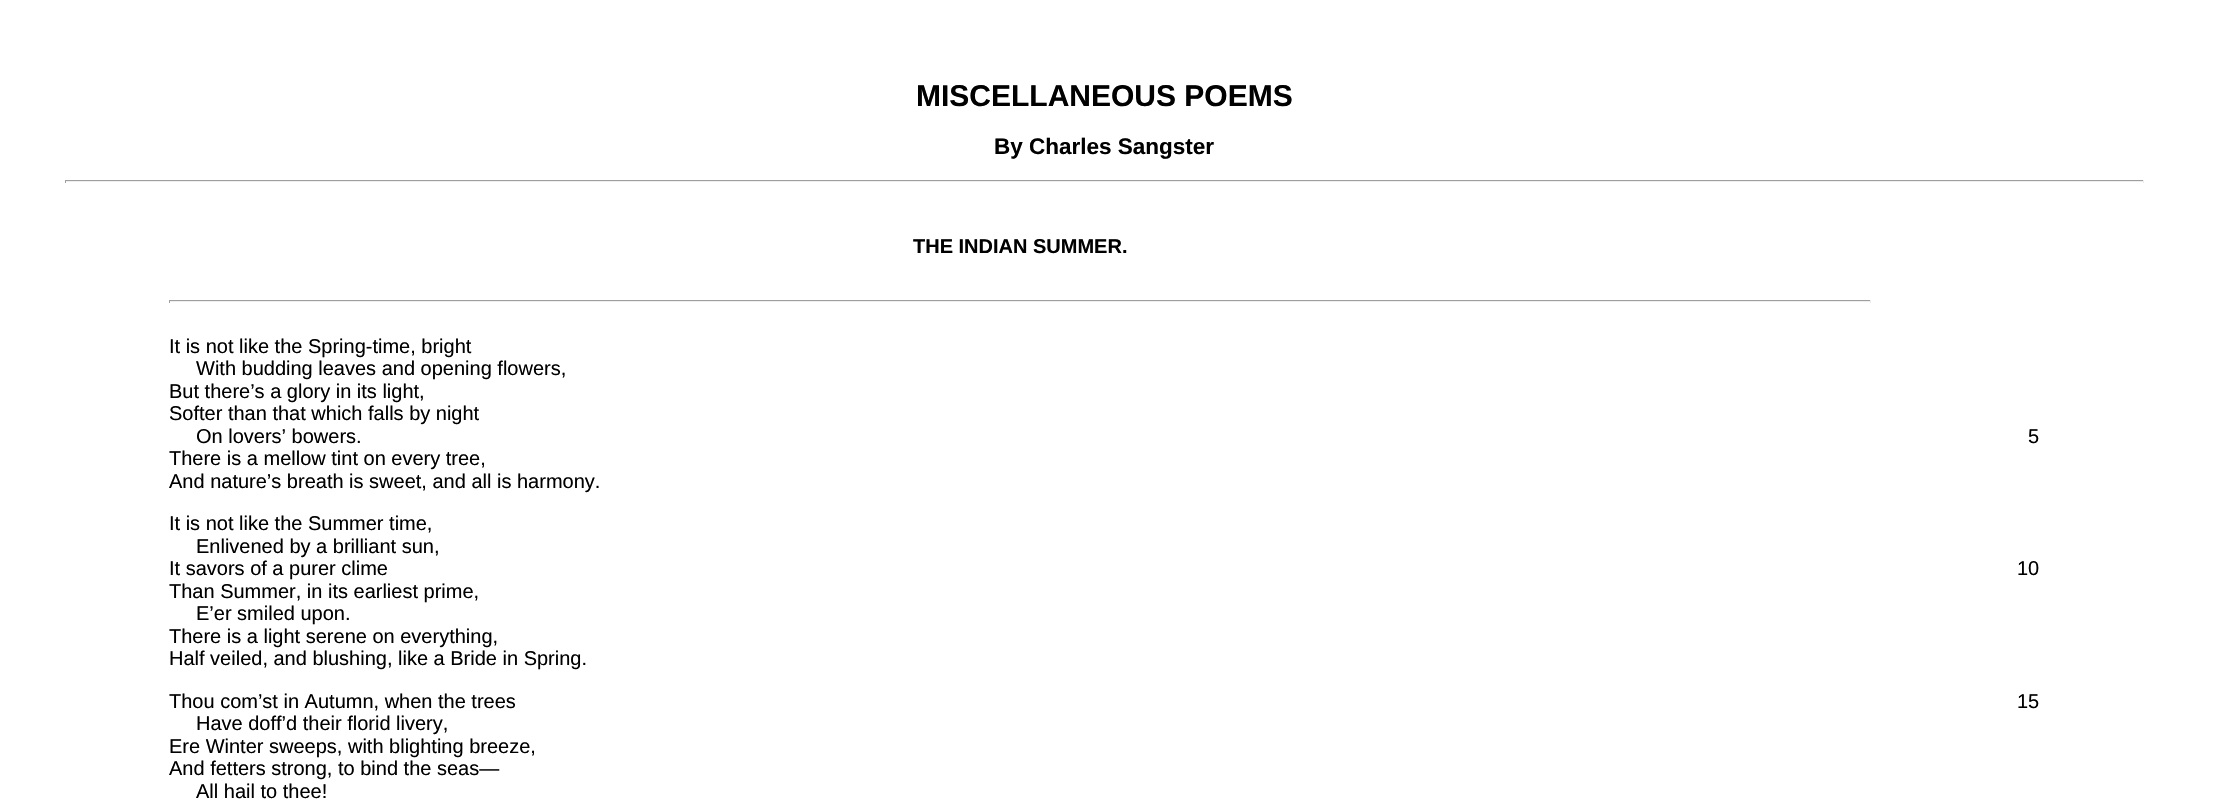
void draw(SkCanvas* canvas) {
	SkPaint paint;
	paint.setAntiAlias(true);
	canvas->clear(0xffffffff);
	SkFont f1(fontMgr->matchFamilyStyle("Liberation Sans", SkFontStyle::Bold()), 30);
	f1.setSubpixel(true);
	paint.setColor(0xff000000);
	canvas->drawString("MISCELLANEOUS POEMS", 916, 106, f1, paint);
	SkFont f2(fontMgr->matchFamilyStyle("Liberation Sans", SkFontStyle::Bold()), 22.5);
	f2.setSubpixel(true);
	canvas->drawString("By Charles Sangster", 994, 154, f2, paint);
	paint.setColor(0xff9f9f9f);
	canvas->drawRect(SkRect::MakeXYWH(65, 180, 2079, 1), paint);
	paint.setColor(0xffeeeeee);
	canvas->drawRect(SkRect::MakeXYWH(2143, 180, 1, 3), paint);
	canvas->drawRect(SkRect::MakeXYWH(65, 181, 2079, 1), paint);
	paint.setColor(0xff9f9f9f);
	canvas->drawRect(SkRect::MakeXYWH(65, 180, 1, 3), paint);
	SkFont f3(fontMgr->matchFamilyStyle("Liberation Sans", SkFontStyle::Bold()), 20);
	f3.setSubpixel(true);
	paint.setColor(0xff000000);
	canvas->drawString("THE INDIAN SUMMER.", 913, 253, f3, paint);
	paint.setColor(0xff9f9f9f);
	canvas->drawRect(SkRect::MakeXYWH(169, 300, 1702, 1), paint);
	paint.setColor(0xffeeeeee);
	canvas->drawRect(SkRect::MakeXYWH(1870, 300, 1, 3), paint);
	canvas->drawRect(SkRect::MakeXYWH(169, 301, 1702, 1), paint);
	paint.setColor(0xff9f9f9f);
	canvas->drawRect(SkRect::MakeXYWH(169, 300, 1, 3), paint);
	SkFont f4(fontMgr->matchFamilyStyle("Liberation Sans", SkFontStyle::Normal()), 20);
	f4.setSubpixel(true);
	paint.setColor(0xff000000);
	canvas->drawString("It is not like the Spring-time, bright", 169, 353, f4, paint);
	canvas->drawString("With budding leaves and opening flowers,", 196, 375, f4, paint);
	canvas->drawString("But there’s a glory in its light,", 169, 398, f4, paint);
	canvas->drawString("Softer than that which falls by night", 169, 420, f4, paint);
	canvas->drawString("On lovers’ bowers.", 196, 443, f4, paint);
	canvas->drawString("5", 2028, 443, f4, paint);
	canvas->drawString("There is a mellow tint on every tree,", 169, 465, f4, paint);
	canvas->drawString("And nature’s breath is sweet, and all is harmony.", 169, 488, f4, paint);
	canvas->drawString("It is not like the Summer time,", 169, 530, f4, paint);
	canvas->drawString("Enlivened by a brilliant sun,", 196, 553, f4, paint);
	canvas->drawString("It savors of a purer clime", 169, 575, f4, paint);
	canvas->drawString("10", 2017, 575, f4, paint);
	canvas->drawString("Than Summer, in its earliest prime,", 169, 598, f4, paint);
	canvas->drawString("E’er smiled upon.", 196, 620, f4, paint);
	canvas->drawString("There is a light serene on everything,", 169, 643, f4, paint);
	canvas->drawString("Half veiled, and blushing, like a Bride in Spring.", 169, 665, f4, paint);
	canvas->drawString("Thou com’st in Autumn, when the trees", 169, 708, f4, paint);
	canvas->drawString("15", 2017, 708, f4, paint);
	canvas->drawString("Have doff’d their florid livery,", 196, 730, f4, paint);
	canvas->drawString("Ere Winter sweeps, with blighting breeze,", 169, 753, f4, paint);
	canvas->drawString("And fetters strong, to bind the seas—", 169, 775, f4, paint);
	canvas->drawString("All hail to thee!", 196, 798, f4, paint);
}
